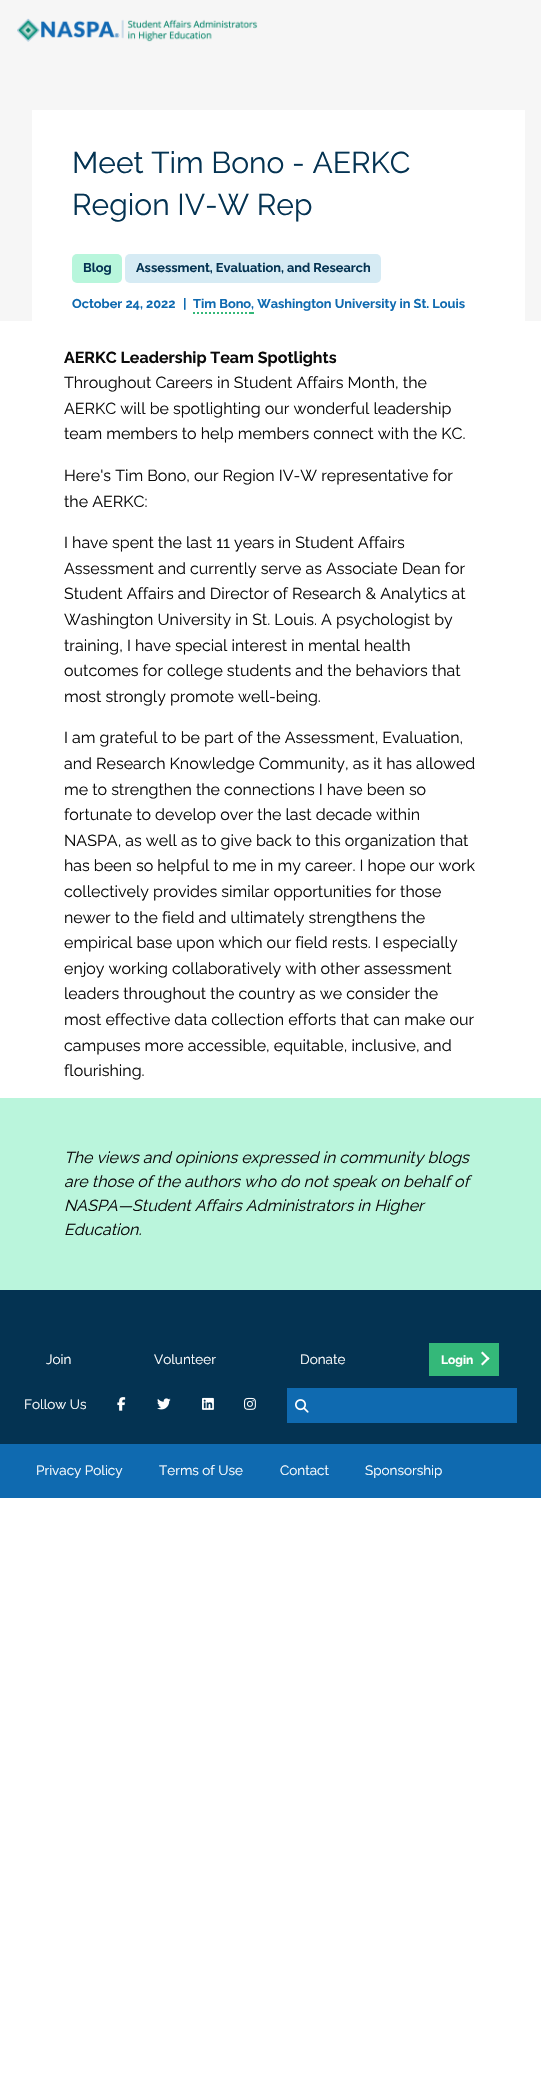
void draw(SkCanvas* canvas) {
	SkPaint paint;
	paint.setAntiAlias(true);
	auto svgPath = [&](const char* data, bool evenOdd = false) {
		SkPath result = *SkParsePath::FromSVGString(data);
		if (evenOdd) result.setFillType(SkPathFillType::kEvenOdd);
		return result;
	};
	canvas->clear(0xffffffff);
	paint.setColor(0xfff6f6f6);
	canvas->drawRect(SkRect::MakeXYWH(0, 0, 541, 321), paint);
	canvas->drawImageRect(SkImages::DeferredFromEncodedData(SkData::MakeFromFileName("img1.png")), SkRect::MakeXYWH(17, 18, 241, 24), SkSamplingOptions());
	paint.setColor(0xffffffff);
	canvas->drawRect(SkRect::MakeXYWH(32, 110, 493, 211), paint);
	SkFont f1(fontMgr->matchFamilyStyle("Raleway", SkFontStyle::Normal()), 30);
	f1.setSubpixel(true);
	paint.setColor(0xff043352);
	canvas->drawString("Meet Tim Bono - AERKC", 72, 173, f1, paint);
	canvas->drawString("Region IV-W Rep", 72, 215, f1, paint);
	paint.setColor(0xffb8f6dc);
	canvas->drawRoundRect(SkRect::MakeXYWH(72, 254, 50, 29), 5, 5, paint);
	SkFont f2(fontMgr->matchFamilyStyle("Raleway", SkFontStyle::Bold()), 12.8);
	f2.setSubpixel(true);
	paint.setColor(0xff043352);
	canvas->drawString("Blog", 83, 272, f2, paint);
	paint.setColor(0xffd6ebf4);
	canvas->drawRoundRect(SkRect::MakeXYWH(125, 254, 256, 29), 5, 5, paint);
	paint.setColor(0xff043352);
	canvas->drawString("Assessment, Evaluation, and Research", 136, 272, f2, paint);
	paint.setColor(0xff0f6ab0);
	canvas->drawString("October 24, 2022", 72, 308, f2, paint);
	canvas->drawString("|", 183, 308, f2, paint);
	canvas->drawString("Tim Bono, Washington University in St. Louis", 193, 308, f2, paint);
	paint.setStroke(true);
	paint.setStrokeWidth(2);
	paint.setColor(0xff34b879);
	paint.setPathEffect(SkDashPathEffect::Make({{2, 2}}, 0));
	canvas->drawPath(svgPath("M193 313H251"), paint);
	paint.setPathEffect(nullptr);
	paint.setStroke(false);
	canvas->drawRect(SkRect::MakeXYWH(251, 312, 3, 2), paint);
	SkFont f3(fontMgr->matchFamilyStyle("Raleway", SkFontStyle::Bold()), 16);
	f3.setSubpixel(true);
	paint.setColor(0xff0a0a0a);
	canvas->drawString("AERKC Leadership Team Spotlights", 64, 363, f3, paint);
	SkFont f4(fontMgr->matchFamilyStyle("Raleway", SkFontStyle::Normal()), 16);
	f4.setSubpixel(true);
	canvas->drawString("Throughout Careers in Student Affairs Month, the", 64, 388, f4, paint);
	canvas->drawString("AERKC will be spotlighting our wonderful leadership", 64, 414, f4, paint);
	canvas->drawString("team members to help members connect with the KC.", 64, 439, f4, paint);
	canvas->drawString("Here's Tim Bono, our Region IV-W representative for", 64, 481, f4, paint);
	canvas->drawString("the AERKC:", 64, 507, f4, paint);
	canvas->drawString("I have spent the last 11 years in Student Affairs", 64, 548, f4, paint);
	canvas->drawString("Assessment and currently serve as Associate Dean for", 64, 574, f4, paint);
	canvas->drawString("Student Affairs and Director of Research & Analytics at", 64, 599, f4, paint);
	canvas->drawString("Washington University in St. Louis. A psychologist by", 64, 625, f4, paint);
	canvas->drawString("training, I have special interest in mental health", 64, 651, f4, paint);
	canvas->drawString("outcomes for college students and the behaviors that", 64, 676, f4, paint);
	canvas->drawString("most strongly promote well-being.", 64, 702, f4, paint);
	canvas->drawString("I am grateful to be part of the Assessment, Evaluation,", 64, 743, f4, paint);
	canvas->drawString("and Research Knowledge Community, as it has allowed", 64, 769, f4, paint);
	canvas->drawString("me to strengthen the connections I have been so", 64, 795, f4, paint);
	canvas->drawString("fortunate to develop over the last decade within", 64, 820, f4, paint);
	canvas->drawString("NASPA, as well as to give back to this organization that", 64, 846, f4, paint);
	canvas->drawString("has been so helpful to me in my career. I hope our work", 64, 871, f4, paint);
	canvas->drawString("collectively provides similar opportunities for those", 64, 897, f4, paint);
	canvas->drawString("newer to the field and ultimately strengthens the", 64, 923, f4, paint);
	canvas->drawString("empirical base upon which our field rests. I especially", 64, 948, f4, paint);
	canvas->drawString("enjoy working collaboratively with other assessment", 64, 974, f4, paint);
	canvas->drawString("leaders throughout the country as we consider the", 64, 999, f4, paint);
	canvas->drawString("most effective data collection efforts that can make our", 64, 1025, f4, paint);
	canvas->drawString("campuses more accessible, equitable, inclusive, and", 64, 1051, f4, paint);
	canvas->drawString("flourishing.", 64, 1076, f4, paint);
	paint.setColor(0xffbaf5dc);
	canvas->drawRect(SkRect::MakeXYWH(0, 1098, 541, 192), paint);
	SkFont f5(fontMgr->matchFamilyStyle("Raleway", SkFontStyle::Italic()), 16);
	f5.setSubpixel(true);
	paint.setColor(0xff0a0a0a);
	canvas->drawString("The views and opinions expressed in community blogs", 64, 1163, f5, paint);
	canvas->drawString("are those of the authors who do not speak on behalf of", 64, 1187, f5, paint);
	canvas->drawString("NASPA—Student Affairs Administrators in Higher", 64, 1211, f5, paint);
	canvas->drawString("Education.", 64, 1235, f5, paint);
	paint.setColor(0xff043352);
	canvas->drawRect(SkRect::MakeXYWH(0, 1290, 541, 154), paint);
	SkFont f6(fontMgr->matchFamilyStyle("Raleway", SkFontStyle::Normal()), 13.5);
	f6.setSubpixel(true);
	paint.setColor(0xffffffff);
	canvas->drawString("Join", 46, 1364, f6, paint);
	canvas->drawString("Volunteer", 154, 1364, f6, paint);
	canvas->drawString("Donate", 300, 1364, f6, paint);
	paint.setColor(0xff34b879);
	canvas->drawRect(SkRect::MakeXYWH(429, 1343, 70, 33), paint);
	SkFont f7(fontMgr->matchFamilyStyle("Raleway", SkFontStyle::Bold()), 12);
	f7.setSubpixel(true);
	paint.setColor(0xffffffff);
	canvas->drawString("Login", 441, 1364, f7, paint);
	canvas->drawPath(svgPath("M481 1353L482.5 1351.5L489.5 1358.5L488 1360Z"), paint);
	canvas->drawPath(svgPath("M481 1364L488 1357L489.5 1358.5L482.5 1365.5Z"), paint);
	canvas->drawString("Follow Us", 24, 1409, f6, paint);
	canvas->drawImageRect(SkImages::DeferredFromEncodedData(SkData::MakeFromFileName("img2.png")), SkRect::MakeXYWH(117, 1397, 9, 14), SkSamplingOptions());
	canvas->drawImageRect(SkImages::DeferredFromEncodedData(SkData::MakeFromFileName("img3.png")), SkRect::MakeXYWH(157, 1398, 14, 12), SkSamplingOptions());
	canvas->drawImageRect(SkImages::DeferredFromEncodedData(SkData::MakeFromFileName("img4.png")), SkRect::MakeXYWH(202, 1397, 12, 13), SkSamplingOptions());
	canvas->drawImageRect(SkImages::DeferredFromEncodedData(SkData::MakeFromFileName("img5.png")), SkRect::MakeXYWH(244, 1397, 12, 13), SkSamplingOptions());
	paint.setColor(0xff0f6ab0);
	canvas->drawRect(SkRect::MakeXYWH(287, 1388, 230, 35), paint);
	canvas->drawImageRect(SkImages::DeferredFromEncodedData(SkData::MakeFromFileName("img6.png")), SkRect::MakeXYWH(295, 1399, 14, 14), SkSamplingOptions());
	canvas->drawRect(SkRect::MakeXYWH(0, 1444, 541, 54), paint);
	paint.setColor(0xffffffff);
	canvas->drawString("Privacy Policy", 36, 1475, f6, paint);
	canvas->drawString("Terms of Use", 159, 1475, f6, paint);
	canvas->drawString("Contact", 280, 1475, f6, paint);
	canvas->drawString("Sponsorship", 365, 1475, f6, paint);
}
